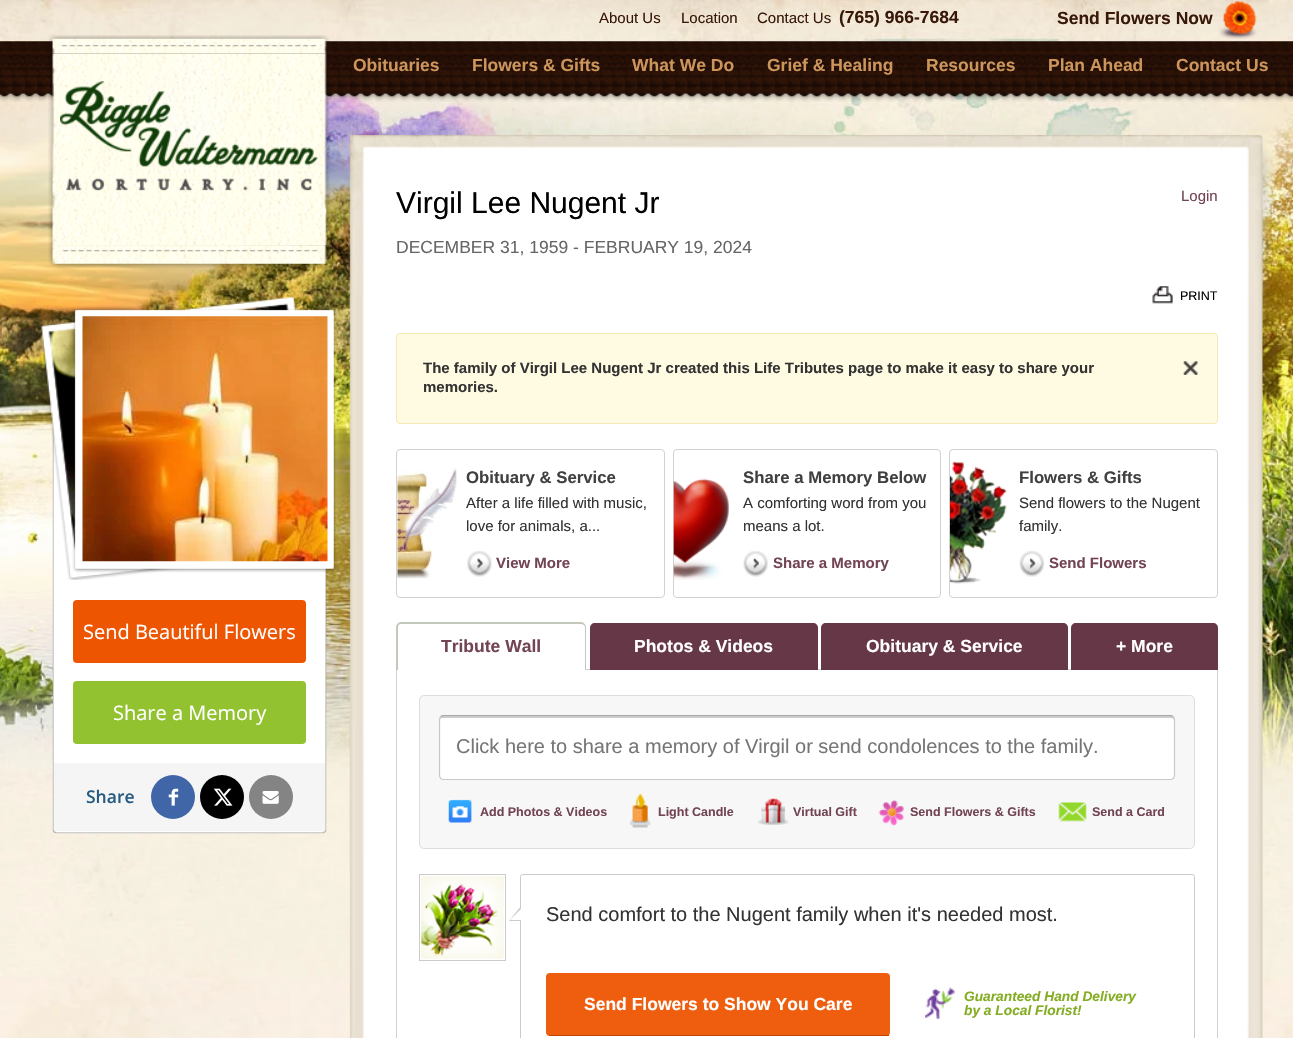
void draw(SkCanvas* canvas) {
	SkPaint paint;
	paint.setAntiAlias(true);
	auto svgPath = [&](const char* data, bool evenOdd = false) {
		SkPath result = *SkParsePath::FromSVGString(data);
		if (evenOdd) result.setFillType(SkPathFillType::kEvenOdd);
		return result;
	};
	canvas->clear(0xffffffff);
	canvas->drawImageRect(SkImages::DeferredFromEncodedData(SkData::MakeFromFileName("img1.png")), SkRect::MakeXYWH(0, 977, 1293, 61), SkSamplingOptions());
	canvas->drawImageRect(SkImages::DeferredFromEncodedData(SkData::MakeFromFileName("img2.png")), SkRect::MakeXYWH(0, 0, 1293, 978), SkSamplingOptions());
	canvas->drawImageRect(SkImages::DeferredFromEncodedData(SkData::MakeFromFileName("img3.png")), SkRect::MakeXYWH(0, 41, 1293, 61), SkSamplingOptions());
	SkFont f1(fontMgr->matchFamilyStyle("Liberation Sans", SkFontStyle::Normal()), 15);
	f1.setSubpixel(true);
	paint.setColor(0xff381808);
	canvas->drawString("About Us", 599, 23, f1, paint);
	canvas->drawString("Location", 681, 23, f1, paint);
	canvas->drawString("Contact Us", 757, 23, f1, paint);
	SkFont f2(fontMgr->matchFamilyStyle("Liberation Sans", SkFontStyle::Bold()), 17.5);
	f2.setSubpixel(true);
	canvas->drawString("(765) 966-7684", 839, 23, f2, paint);
	canvas->drawImageRect(SkImages::DeferredFromEncodedData(SkData::MakeFromFileName("img4.png")), SkRect::MakeXYWH(1219, 0, 38, 39), SkSamplingOptions());
	canvas->drawString("Send Flowers Now", 1057, 24, f2, paint);
	paint.setColor(0xffcc955c);
	canvas->drawString("Obituaries", 353, 71, f2, paint);
	canvas->drawString("Flowers & Gifts", 472, 71, f2, paint);
	canvas->drawString("What We Do", 632, 71, f2, paint);
	canvas->drawString("Grief & Healing", 767, 71, f2, paint);
	canvas->drawString("Resources", 926, 71, f2, paint);
	canvas->drawString("Plan Ahead", 1048, 71, f2, paint);
	canvas->drawString("Contact Us", 1176, 71, f2, paint);
	canvas->drawImageRect(SkImages::DeferredFromEncodedData(SkData::MakeFromFileName("img5.png")), SkRect::MakeXYWH(350, 134, 925, 202), SkSamplingOptions());
	canvas->drawImageRect(SkImages::DeferredFromEncodedData(SkData::MakeFromFileName("img6.png")), SkRect::MakeXYWH(349, 161, 914, 877), SkSamplingOptions());
	canvas->drawImageRect(SkImages::DeferredFromEncodedData(SkData::MakeFromFileName("img7.png")), SkRect::MakeXYWH(48, 35, 282, 19), SkSamplingOptions());
	canvas->drawImageRect(SkImages::DeferredFromEncodedData(SkData::MakeFromFileName("img8.png")), SkRect::MakeXYWH(48, 244, 282, 24), SkSamplingOptions());
	canvas->drawImageRect(SkImages::DeferredFromEncodedData(SkData::MakeFromFileName("img9.png")), SkRect::MakeXYWH(48, 53, 283, 192), SkSamplingOptions());
	canvas->drawImageRect(SkImages::DeferredFromEncodedData(SkData::MakeFromFileName("img10.png")), SkRect::MakeXYWH(60, 81, 258, 110), SkSamplingOptions());
	paint.setColor(0x99000000);
	paint.setMaskFilter(SkMaskFilter::MakeBlur(kNormal_SkBlurStyle, 0.5));
	canvas->drawRoundRect(SkRect::MakeXYWH(53, 333, 273, 500), 4, 4, paint);
	paint.setMaskFilter(nullptr);
	paint.setColor(0xffffffff);
	canvas->drawRoundRect(SkRect::MakeXYWH(53.5, 333.5, 272, 499), 3.5, 3.5, paint);
	paint.setStroke(true);
	paint.setStrokeWidth(1);
	paint.setColor(0xffd0d0d0);
	canvas->drawRoundRect(SkRect::MakeXYWH(53.5, 333.5, 272, 499), 3.5, 3.5, paint);
	canvas->drawImageRect(SkImages::DeferredFromEncodedData(SkData::MakeFromFileName("img11.png")), SkRect::MakeXYWH(40, 296, 296, 284), SkSamplingOptions());
	canvas->drawImageRect(SkImages::DeferredFromEncodedData(SkData::MakeFromFileName("img12.png")), SkRect::MakeXYWH(82, 316, 246, 246), SkSamplingOptions());
	paint.setStroke(false);
	paint.setColor(0xffed5501);
	canvas->drawRoundRect(SkRect::MakeXYWH(73, 600, 233, 63), 4, 4, paint);
	SkFont f3(fontMgr->matchFamilyStyle("Open Sans", SkFontStyle::Normal()), 20);
	f3.setSubpixel(true);
	paint.setColor(0xffffffff);
	canvas->drawString("Send Beautiful Flowers", 83, 639, f3, paint);
	paint.setColor(0xff92c230);
	canvas->drawRoundRect(SkRect::MakeXYWH(73, 681, 233, 63), 4, 4, paint);
	paint.setColor(0xffffffff);
	canvas->drawString("Share a Memory", 113, 720, f3, paint);
	paint.setColor(0xfff5f5f5);
	canvas->drawPath(svgPath("M54 763H325V827C325 829 323 831 321 831H58C56 831 54 829 54 827Z"), paint);
	SkFont f4(fontMgr->matchFamilyStyle("Open Sans", SkFontStyle(600, SkFontStyle::kNormal_Width, SkFontStyle::kUpright_Slant)), 17.5);
	f4.setSubpixel(true);
	paint.setColor(0xff275b82);
	canvas->drawString("Share", 86, 803, f4, paint);
	paint.setColor(0xff4166a7);
	canvas->drawCircle(173, 797, 22, paint);
	canvas->drawImageRect(SkImages::DeferredFromEncodedData(SkData::MakeFromFileName("img13.png")), SkRect::MakeXYWH(168, 788, 11, 18), SkSamplingOptions());
	paint.setColor(0xff000000);
	canvas->drawCircle(222, 797, 22, paint);
	canvas->drawImageRect(SkImages::DeferredFromEncodedData(SkData::MakeFromFileName("img14.png")), SkRect::MakeXYWH(213, 788, 20, 18), SkSamplingOptions());
	paint.setColor(0xff848484);
	canvas->drawCircle(271, 797, 22, paint);
	canvas->drawImageRect(SkImages::DeferredFromEncodedData(SkData::MakeFromFileName("img15.png")), SkRect::MakeXYWH(262, 791, 17, 13), SkSamplingOptions());
	SkFont f5(fontMgr->matchFamilyStyle("Liberation Sans", SkFontStyle::Normal()), 30);
	f5.setSubpixel(true);
	paint.setColor(0xff000000);
	canvas->drawString("Virgil Lee Nugent Jr", 396, 213, f5, paint);
	SkFont f6(fontMgr->matchFamilyStyle("Liberation Sans", SkFontStyle::Normal()), 17.5);
	f6.setSubpixel(true);
	paint.setColor(0xff666666);
	canvas->drawString("DECEMBER 31, 1959 - FEBRUARY 19, 2024", 396, 253, f6, paint);
	paint.setColor(0xff724454);
	canvas->drawString("Login", 1181, 201, f1, paint);
	canvas->drawImageRect(SkImages::DeferredFromEncodedData(SkData::MakeFromFileName("img16.png")), SkRect::MakeXYWH(1152, 286, 21, 18), SkSamplingOptions());
	SkFont f7(fontMgr->matchFamilyStyle("Liberation Sans", SkFontStyle::Normal()), 12.5);
	f7.setSubpixel(true);
	paint.setColor(0xff000000);
	canvas->drawString("PRINT", 1180, 300, f7, paint);
	paint.setColor(0xfffffae2);
	canvas->drawRoundRect(SkRect::MakeXYWH(396.5, 333.5, 821, 90), 3.5, 3.5, paint);
	paint.setStroke(true);
	paint.setColor(0xfff4eab8);
	canvas->drawRoundRect(SkRect::MakeXYWH(396.5, 333.5, 821, 90), 3.5, 3.5, paint);
	SkFont f8(fontMgr->matchFamilyStyle("Liberation Sans", SkFontStyle::Bold()), 15);
	f8.setSubpixel(true);
	paint.setStroke(false);
	paint.setColor(0xff333333);
	canvas->drawString("The family of Virgil Lee Nugent Jr created this Life Tributes page to make it easy to share your", 423, 373, f8, paint);
	canvas->drawString("memories.", 423, 392, f8, paint);
	canvas->drawImageRect(SkImages::DeferredFromEncodedData(SkData::MakeFromFileName("img17.png")), SkRect::MakeXYWH(1183, 361, 15, 14), SkSamplingOptions());
	paint.setStroke(true);
	paint.setColor(0xffd2d2d2);
	canvas->drawRoundRect(SkRect::MakeXYWH(396.5, 449.5, 268, 148), 3.5, 3.5, paint);
	canvas->drawImageRect(SkImages::DeferredFromEncodedData(SkData::MakeFromFileName("img18.png")), SkRect::MakeXYWH(397, 468, 60, 111), SkSamplingOptions());
	SkFont f9(fontMgr->matchFamilyStyle("Liberation Sans", SkFontStyle::Bold()), 16.75);
	f9.setSubpixel(true);
	paint.setStroke(false);
	paint.setColor(0xff404040);
	canvas->drawString("Obituary & Service", 466, 483, f9, paint);
	paint.setColor(0xff333333);
	canvas->drawString("After a life filled with music,", 466, 508, f1, paint);
	canvas->drawString("love for animals, a...", 466, 531, f1, paint);
	canvas->drawImageRect(SkImages::DeferredFromEncodedData(SkData::MakeFromFileName("img19.png")), SkRect::MakeXYWH(467, 551, 25, 26), SkSamplingOptions());
	paint.setColor(0xff724454);
	canvas->drawString("View More", 496, 568, f8, paint);
	paint.setStroke(true);
	paint.setColor(0xffd2d2d2);
	canvas->drawRoundRect(SkRect::MakeXYWH(673.5, 449.5, 267, 148), 3.5, 3.5, paint);
	canvas->drawImageRect(SkImages::DeferredFromEncodedData(SkData::MakeFromFileName("img20.png")), SkRect::MakeXYWH(673, 478, 56, 102), SkSamplingOptions());
	paint.setStroke(false);
	paint.setColor(0xff404040);
	canvas->drawString("Share a Memory Below", 743, 483, f9, paint);
	paint.setColor(0xff333333);
	canvas->drawString("A comforting word from you", 743, 508, f1, paint);
	canvas->drawString("means a lot.", 743, 531, f1, paint);
	canvas->drawImageRect(SkImages::DeferredFromEncodedData(SkData::MakeFromFileName("img21.png")), SkRect::MakeXYWH(743, 551, 25, 26), SkSamplingOptions());
	paint.setColor(0xff724454);
	canvas->drawString("Share a Memory", 773, 568, f8, paint);
	paint.setStroke(true);
	paint.setColor(0xffd2d2d2);
	canvas->drawRoundRect(SkRect::MakeXYWH(949.5, 449.5, 268, 148), 3.5, 3.5, paint);
	canvas->drawImageRect(SkImages::DeferredFromEncodedData(SkData::MakeFromFileName("img22.png")), SkRect::MakeXYWH(950, 461, 57, 123), SkSamplingOptions());
	paint.setStroke(false);
	paint.setColor(0xff404040);
	canvas->drawString("Flowers & Gifts", 1019, 483, f9, paint);
	paint.setColor(0xff333333);
	canvas->drawString("Send flowers to the Nugent", 1019, 508, f1, paint);
	canvas->drawString("family.", 1019, 531, f1, paint);
	canvas->drawImageRect(SkImages::DeferredFromEncodedData(SkData::MakeFromFileName("img23.png")), SkRect::MakeXYWH(1019, 551, 26, 26), SkSamplingOptions());
	paint.setColor(0xff724454);
	canvas->drawString("Send Flowers", 1049, 568, f8, paint);
	paint.setStroke(true);
	paint.setColor(0xffd2d2d2);
	canvas->drawRect(SkRect::MakeXYWH(396.5, 669.5, 821, 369), paint);
	paint.setStroke(false);
	paint.setColor(0xffffffff);
	canvas->drawPath(svgPath("M402 624H581C583 624 585 626 585 628V670H398V628C398 626 400 624 402 624Z"), paint);
	paint.setColor(0xffc3c8bd);
	canvas->drawPath(svgPath("M401 622H581C584 622 586 625 586 628V670H396V628C396 625 398 622 401 622ZM401 624H581C583 624 585 625 585 628V670H398V628C398 625 399 624 401 624Z", true), paint);
	paint.setColor(0xff724454);
	canvas->drawString("Tribute Wall", 441, 652, f2, paint);
	paint.setColor(0xff663747);
	canvas->drawPath(svgPath("M595 623H813C816 623 818 625 818 628V670H590V628C590 625 592 623 595 623Z"), paint);
	paint.setColor(0xffffffff);
	canvas->drawString("Photos & Videos", 634, 652, f2, paint);
	paint.setColor(0xff663747);
	canvas->drawPath(svgPath("M826 623H1063C1066 623 1068 625 1068 628V670H821V628C821 625 823 623 826 623Z"), paint);
	paint.setColor(0xffffffff);
	canvas->drawString("Obituary & Service", 866, 652, f2, paint);
	paint.setColor(0xff663747);
	canvas->drawPath(svgPath("M1076 623H1213C1216 623 1218 625 1218 628V670H1071V628C1071 625 1073 623 1076 623Z"), paint);
	paint.setColor(0xffffffff);
	canvas->drawString("+ More", 1116, 652, f2, paint);
	paint.setColor(0xfff7f7f7);
	canvas->drawRoundRect(SkRect::MakeXYWH(419.5, 695.5, 775, 153), 4.5, 4.5, paint);
	paint.setStroke(true);
	paint.setColor(0xffdddddd);
	canvas->drawRoundRect(SkRect::MakeXYWH(419.5, 695.5, 775, 153), 4.5, 4.5, paint);
	paint.setStroke(false);
	paint.setColor(0xffffffff);
	canvas->drawRoundRect(SkRect::MakeXYWH(439, 715, 736, 65), 4, 4, paint);
	paint.setColor(0xffcccccc);
	canvas->drawPath(svgPath("M442 718H1171C1173 718 1174 719 1174 720V718C1174 717 1173 716 1172 716H442C441 716 440 717 440 718V720C440 719 441 718 442 718Z"), paint);
	paint.setStroke(true);
	paint.setStrokeWidth(1.2);
	paint.setColor(0xffa7a7a7);
	canvas->drawPath(svgPath("M440.5 716.5L442.5 715.5H1171L1173.5 716.5"), paint);
	paint.setColor(0xffcac9ca);
	canvas->drawPath(svgPath("M1173.5 716.5L1174.5 719V776L1173.5 778.5L1171 779.5H442.5L440.5 778.5L439.5 776V719L440.5 716.5"), paint);
	SkFont f10(fontMgr->matchFamilyStyle("Liberation Sans", SkFontStyle::Normal()), 20);
	f10.setSubpixel(true);
	paint.setStroke(false);
	paint.setColor(0xff767676);
	canvas->drawString("Click here to share a memory of Virgil or send condolences to the family.", 456, 753, f10, paint);
	canvas->drawImageRect(SkImages::DeferredFromEncodedData(SkData::MakeFromFileName("img24.png")), SkRect::MakeXYWH(448, 798, 24, 25), SkSamplingOptions());
	SkFont f11(fontMgr->matchFamilyStyle("Liberation Sans", SkFontStyle::Bold()), 12.5);
	f11.setSubpixel(true);
	paint.setColor(0xff724454);
	canvas->drawString("Add Photos & Videos", 480, 816, f11, paint);
	canvas->drawImageRect(SkImages::DeferredFromEncodedData(SkData::MakeFromFileName("img25.png")), SkRect::MakeXYWH(629, 793, 22, 35), SkSamplingOptions());
	canvas->drawString("Light Candle", 658, 816, f11, paint);
	canvas->drawImageRect(SkImages::DeferredFromEncodedData(SkData::MakeFromFileName("img26.png")), SkRect::MakeXYWH(757, 798, 32, 27), SkSamplingOptions());
	canvas->drawString("Virtual Gift", 793, 816, f11, paint);
	canvas->drawImageRect(SkImages::DeferredFromEncodedData(SkData::MakeFromFileName("img27.png")), SkRect::MakeXYWH(878, 800, 26, 26), SkSamplingOptions());
	canvas->drawString("Send Flowers & Gifts", 910, 816, f11, paint);
	canvas->drawImageRect(SkImages::DeferredFromEncodedData(SkData::MakeFromFileName("img28.png")), SkRect::MakeXYWH(1058, 802, 29, 20), SkSamplingOptions());
	canvas->drawString("Send a Card", 1092, 816, f11, paint);
	paint.setStroke(true);
	paint.setStrokeWidth(1);
	paint.setColor(0xffcbcbcb);
	canvas->drawRect(SkRect::MakeXYWH(419.5, 874.5, 86, 86), paint);
	canvas->drawImageRect(SkImages::DeferredFromEncodedData(SkData::MakeFromFileName("img29.png")), SkRect::MakeXYWH(421, 876, 83, 83), SkSamplingOptions());
	canvas->drawRoundRect(SkRect::MakeXYWH(520.5, 874.5, 674, 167), 2, 2, paint);
	paint.setStroke(false);
	canvas->drawPath(svgPath("M521 921H509L521 906Z"), paint);
	paint.setColor(0xff333333);
	canvas->drawString("Send comfort to the Nugent family when it's needed most.", 546, 921, f10, paint);
	paint.setColor(0xffffffff);
	canvas->drawPath(svgPath("M522.5 920H510L522.5 907.5Z"), paint);
	paint.setColor(0xffee5e0e);
	canvas->drawRoundRect(SkRect::MakeXYWH(546, 973, 344, 63), 4, 4, paint);
	paint.setColor(0xffc14500);
	canvas->drawRect(SkRect::MakeXYWH(549, 1035, 340, 1), paint);
	paint.setColor(0xffffffff);
	canvas->drawString("Send Flowers to Show You Care", 584, 1010, f2, paint);
	canvas->drawImageRect(SkImages::DeferredFromEncodedData(SkData::MakeFromFileName("img30.png")), SkRect::MakeXYWH(925, 987, 30, 32), SkSamplingOptions());
	SkFont f12(fontMgr->matchFamilyStyle("Liberation Sans", SkFontStyle::BoldItalic()), 13.75);
	f12.setSubpixel(true);
	paint.setColor(0xff84ad23);
	canvas->drawString("Guaranteed Hand Delivery", 964, 1001, f12, paint);
	canvas->drawString("by a Local Florist!", 964, 1015, f12, paint);
}
